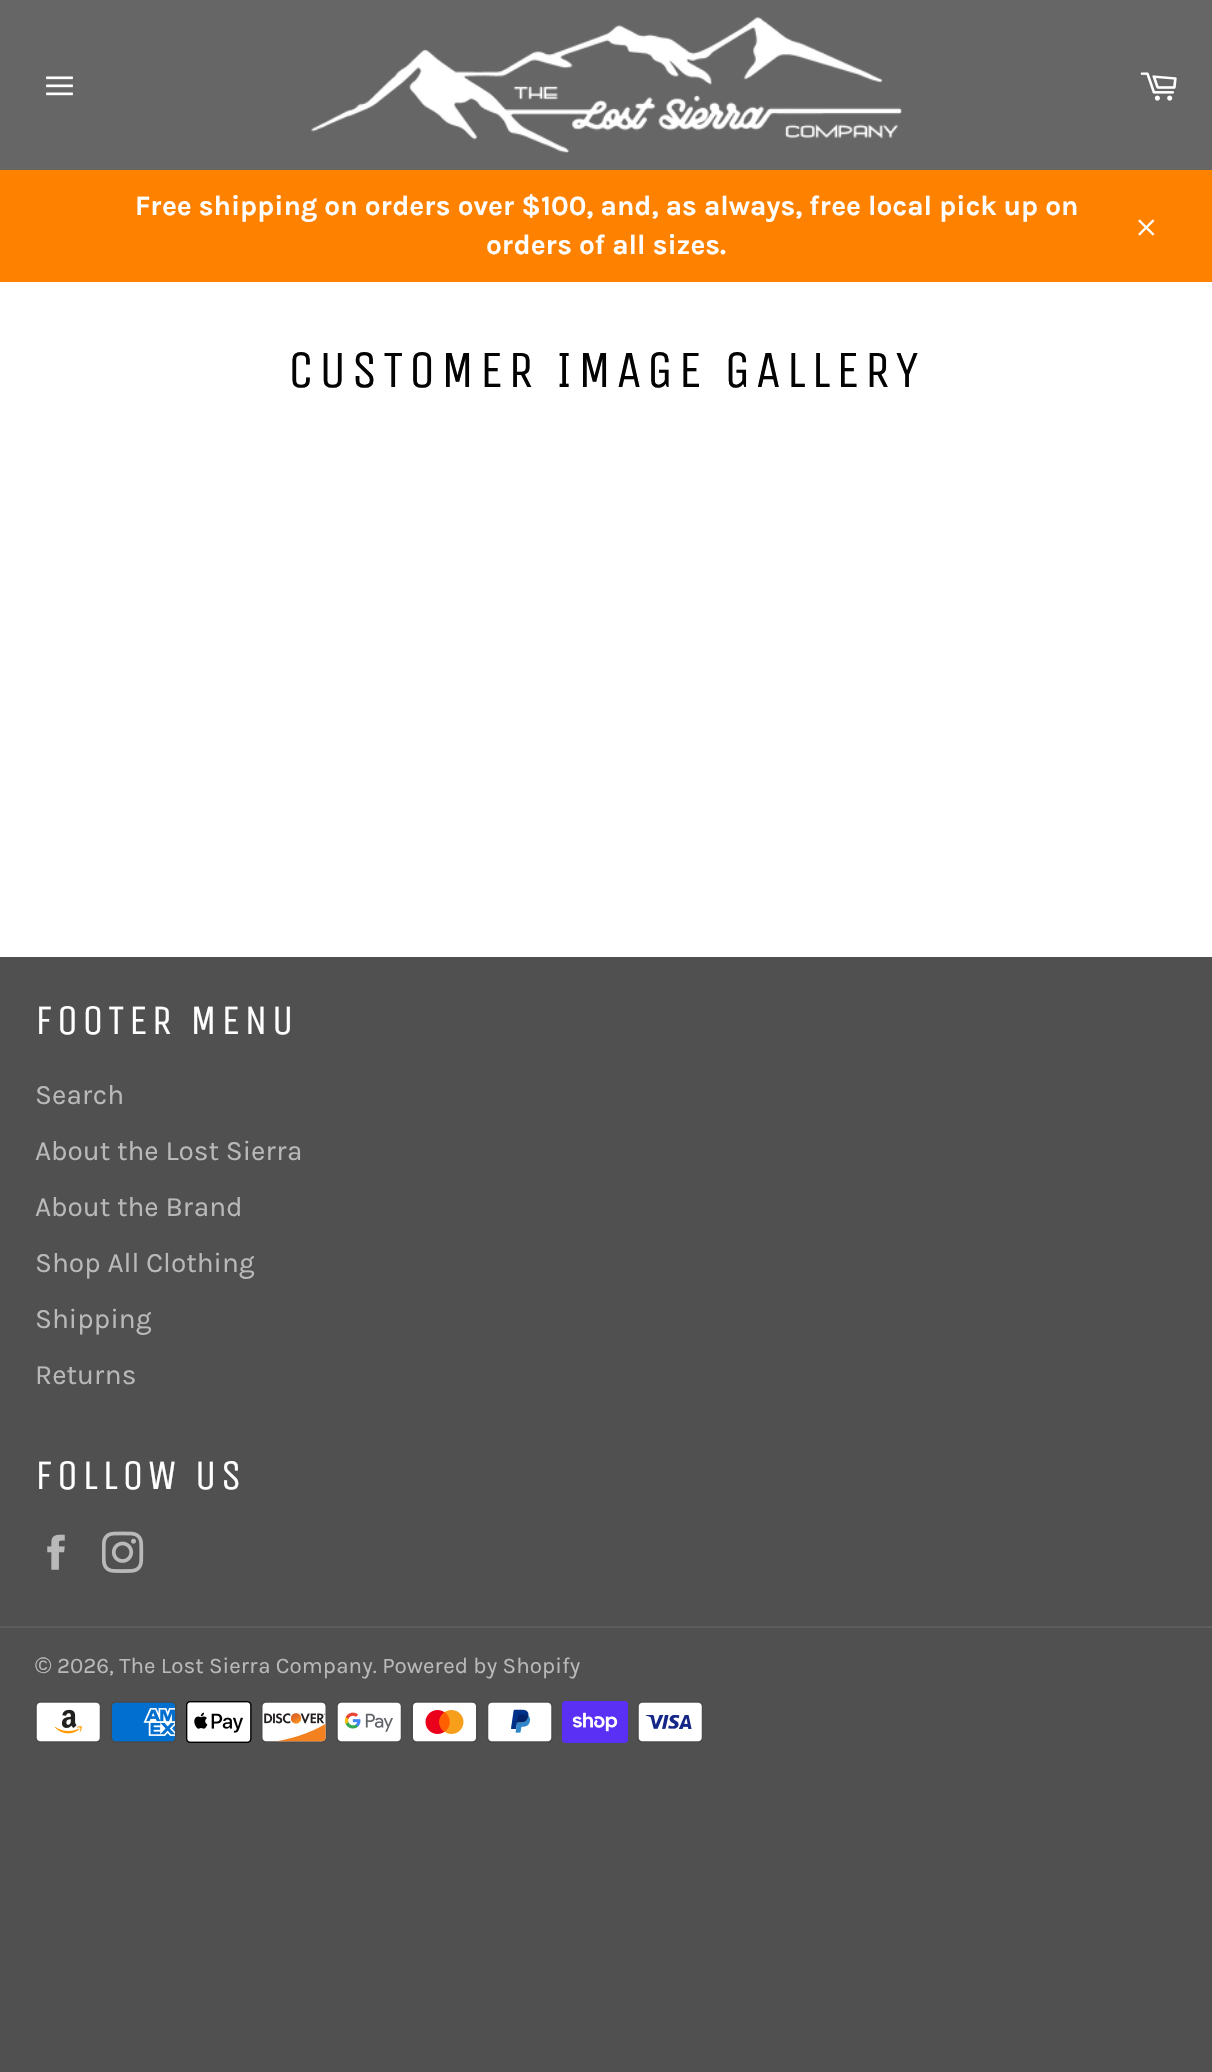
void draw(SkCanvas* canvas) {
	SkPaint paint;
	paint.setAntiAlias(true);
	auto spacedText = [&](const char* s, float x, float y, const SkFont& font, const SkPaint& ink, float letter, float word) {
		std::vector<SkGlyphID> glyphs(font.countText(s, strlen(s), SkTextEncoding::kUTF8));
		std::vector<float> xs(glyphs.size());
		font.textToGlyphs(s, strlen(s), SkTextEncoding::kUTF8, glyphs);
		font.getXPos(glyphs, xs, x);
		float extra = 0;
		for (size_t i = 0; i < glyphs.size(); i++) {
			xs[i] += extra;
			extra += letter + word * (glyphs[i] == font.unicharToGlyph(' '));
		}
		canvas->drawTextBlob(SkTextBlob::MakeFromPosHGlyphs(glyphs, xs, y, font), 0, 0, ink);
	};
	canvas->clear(0xff515050);
	paint.setColor(0xffffffff);
	canvas->drawRect(SkRect::MakeXYWH(0, 282, 1212, 675), paint);
	paint.setColor(0xff666666);
	canvas->drawRect(SkRect::MakeXYWH(0, 0, 1212, 170), paint);
	canvas->drawImageRect(SkImages::DeferredFromEncodedData(SkData::MakeFromFileName("img1.png")), SkRect::MakeXYWH(46, 76, 27, 20), SkSamplingOptions());
	canvas->drawImageRect(SkImages::DeferredFromEncodedData(SkData::MakeFromFileName("img2.png")), SkRect::MakeXYWH(311, 17, 591, 136), SkSamplingOptions());
	canvas->drawImageRect(SkImages::DeferredFromEncodedData(SkData::MakeFromFileName("img3.png")), SkRect::MakeXYWH(1140, 72, 37, 29), SkSamplingOptions());
	paint.setColor(0xffff8100);
	canvas->drawRect(SkRect::MakeXYWH(0, 170, 1212, 112), paint);
	SkFont f1(fontMgr->matchFamilyStyle("Karla", SkFontStyle::Bold()), 28);
	f1.setSubpixel(true);
	paint.setColor(0xffffffff);
	canvas->drawString("Free shipping on orders over $100, and, as always, free local pick up on", 135, 215, f1, paint);
	canvas->drawString("orders of all sizes.", 486, 254, f1, paint);
	canvas->drawImageRect(SkImages::DeferredFromEncodedData(SkData::MakeFromFileName("img4.png")), SkRect::MakeXYWH(1138, 219, 17, 17), SkSamplingOptions());
	SkFont f2(fontMgr->matchFamilyStyle("Unica One", SkFontStyle::Normal()), 52.5);
	f2.setSubpixel(true);
	paint.setColor(0xff030303);
	spacedText("CUSTOMER IMAGE GALLERY", 288, 387, f2, paint, 5.25, 0);
	SkFont f3(fontMgr->matchFamilyStyle("Unica One", SkFontStyle::Normal()), 42);
	f3.setSubpixel(true);
	paint.setColor(0xffffffff);
	spacedText("FOOTER MENU", 35, 1034, f3, paint, 4.25, 0);
	SkFont f4(fontMgr->matchFamilyStyle("Karla", SkFontStyle::Normal()), 28);
	f4.setSubpixel(true);
	paint.setColor(0xffb9b9b9);
	canvas->drawString("Search", 35, 1104, f4, paint);
	canvas->drawString("About the Lost Sierra", 35, 1160, f4, paint);
	canvas->drawString("About the Brand", 35, 1216, f4, paint);
	canvas->drawString("Shop All Clothing", 35, 1272, f4, paint);
	canvas->drawString("Shipping", 35, 1328, f4, paint);
	canvas->drawString("Returns", 35, 1384, f4, paint);
	paint.setColor(0xffffffff);
	spacedText("FOLLOW US", 35, 1489, f3, paint, 4.25, 0);
	canvas->drawImageRect(SkImages::DeferredFromEncodedData(SkData::MakeFromFileName("img5.png")), SkRect::MakeXYWH(47, 1534, 18, 36), SkSamplingOptions());
	canvas->drawImageRect(SkImages::DeferredFromEncodedData(SkData::MakeFromFileName("img6.png")), SkRect::MakeXYWH(102, 1531, 42, 42), SkSamplingOptions());
	paint.setColor(0xff5e5d5d);
	canvas->drawRect(SkRect::MakeXYWH(0, 1626, 1212, 2), paint);
	SkFont f5(fontMgr->matchFamilyStyle("Liberation Sans", SkFontStyle::Normal()), 22.4);
	f5.setSubpixel(true);
	paint.setColor(0xffb9b9b9);
	canvas->drawString("©", 35, 1673, f5, paint);
	SkFont f6(fontMgr->matchFamilyStyle("Karla", SkFontStyle::Normal()), 22.4);
	f6.setSubpixel(true);
	canvas->drawString("2026, The Lost Sierra Company. Powered by Shopify", 57, 1673, f6, paint);
	canvas->drawImageRect(SkImages::DeferredFromEncodedData(SkData::MakeFromFileName("img7.png")), SkRect::MakeXYWH(35, 1701, 66, 42), SkSamplingOptions());
	canvas->drawImageRect(SkImages::DeferredFromEncodedData(SkData::MakeFromFileName("img8.png")), SkRect::MakeXYWH(110, 1701, 67, 42), SkSamplingOptions());
	canvas->drawImageRect(SkImages::DeferredFromEncodedData(SkData::MakeFromFileName("img9.png")), SkRect::MakeXYWH(186, 1701, 66, 42), SkSamplingOptions());
	canvas->drawImageRect(SkImages::DeferredFromEncodedData(SkData::MakeFromFileName("img10.png")), SkRect::MakeXYWH(261, 1701, 66, 42), SkSamplingOptions());
	canvas->drawImageRect(SkImages::DeferredFromEncodedData(SkData::MakeFromFileName("img11.png")), SkRect::MakeXYWH(336, 1701, 66, 42), SkSamplingOptions());
	canvas->drawImageRect(SkImages::DeferredFromEncodedData(SkData::MakeFromFileName("img12.png")), SkRect::MakeXYWH(411, 1701, 67, 42), SkSamplingOptions());
	canvas->drawImageRect(SkImages::DeferredFromEncodedData(SkData::MakeFromFileName("img13.png")), SkRect::MakeXYWH(487, 1701, 66, 42), SkSamplingOptions());
	canvas->drawImageRect(SkImages::DeferredFromEncodedData(SkData::MakeFromFileName("img14.png")), SkRect::MakeXYWH(562, 1701, 66, 42), SkSamplingOptions());
	canvas->drawImageRect(SkImages::DeferredFromEncodedData(SkData::MakeFromFileName("img15.png")), SkRect::MakeXYWH(637, 1701, 66, 42), SkSamplingOptions());
}
